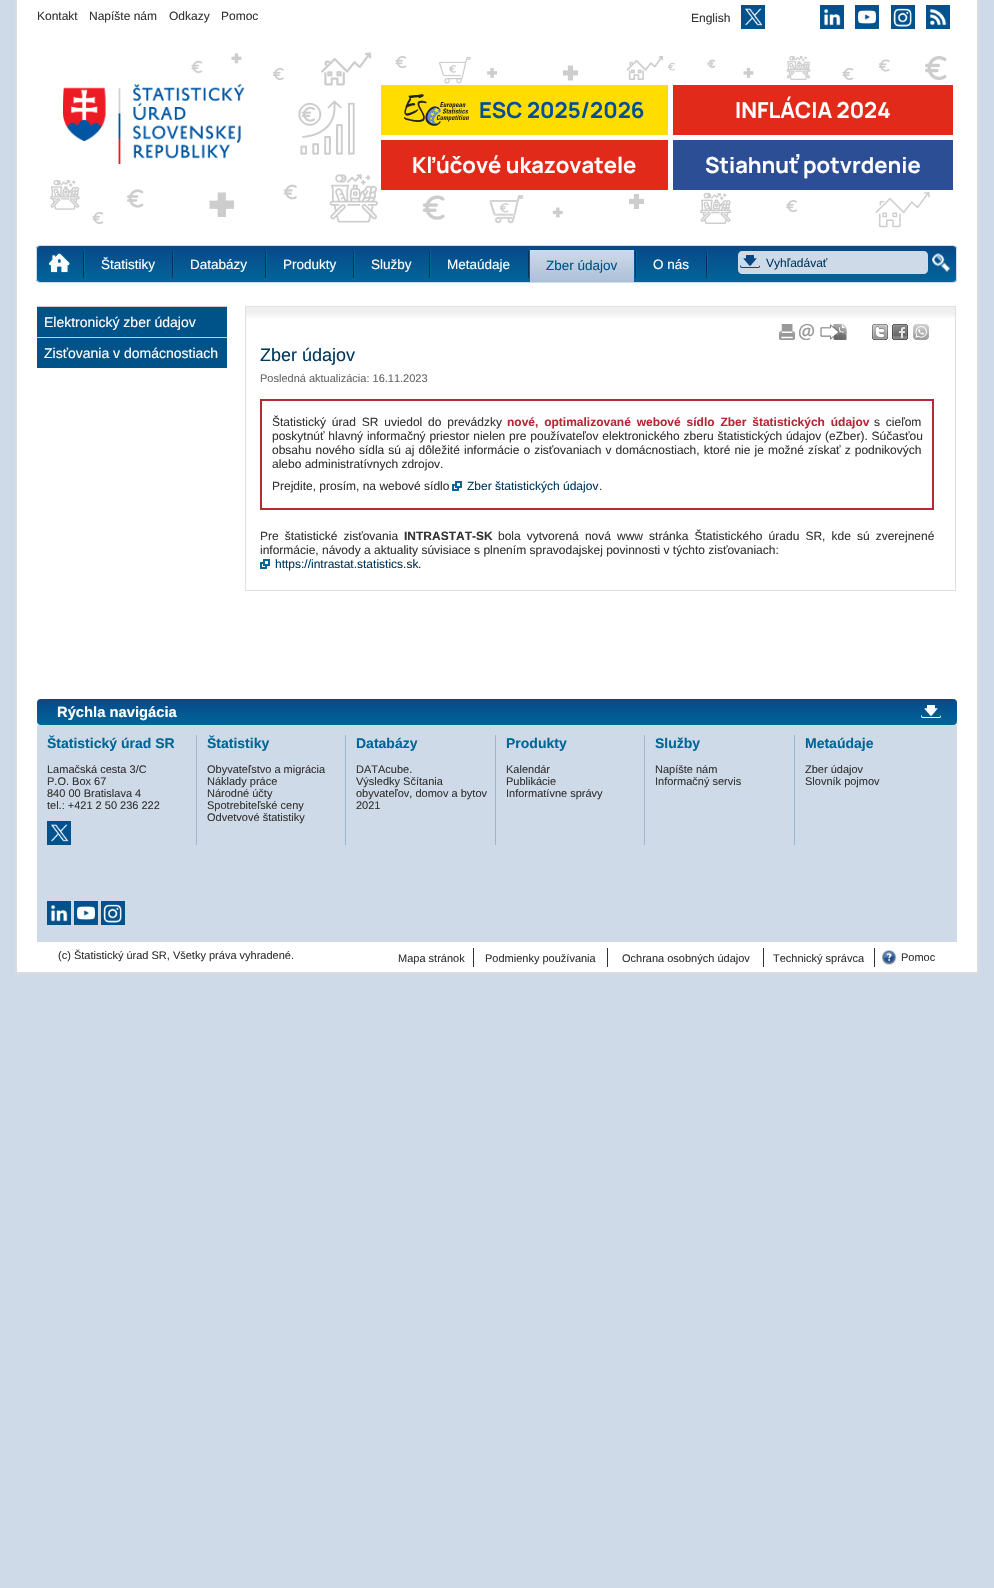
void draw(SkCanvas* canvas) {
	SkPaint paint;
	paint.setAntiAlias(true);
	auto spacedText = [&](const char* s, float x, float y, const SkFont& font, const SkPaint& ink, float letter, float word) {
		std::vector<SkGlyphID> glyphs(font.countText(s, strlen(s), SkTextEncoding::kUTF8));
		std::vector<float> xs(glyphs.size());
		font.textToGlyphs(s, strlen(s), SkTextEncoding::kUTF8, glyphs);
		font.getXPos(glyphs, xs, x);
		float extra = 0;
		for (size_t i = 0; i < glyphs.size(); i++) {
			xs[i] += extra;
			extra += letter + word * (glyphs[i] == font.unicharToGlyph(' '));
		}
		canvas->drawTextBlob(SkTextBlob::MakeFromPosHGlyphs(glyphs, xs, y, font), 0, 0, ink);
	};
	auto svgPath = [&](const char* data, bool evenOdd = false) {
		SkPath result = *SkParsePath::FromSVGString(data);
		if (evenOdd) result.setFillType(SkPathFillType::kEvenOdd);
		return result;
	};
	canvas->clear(0xffcedae7);
	paint.setColor(0xffffffff);
	canvas->drawRect(SkRect::MakeXYWH(17, 0, 960, 972), paint);
	paint.setColor(0xffdadbdc);
	canvas->drawRect(SkRect::MakeXYWH(977, 0, 2, 974), paint);
	canvas->drawRect(SkRect::MakeXYWH(15, 972, 964, 2), paint);
	canvas->drawRect(SkRect::MakeXYWH(15, 0, 2, 974), paint);
	SkFont f1(fontMgr->matchFamilyStyle("Liberation Sans", SkFontStyle::Normal()), 12);
	f1.setSubpixel(true);
	paint.setColor(0xff333333);
	canvas->drawString("Kontakt", 37, 20, f1, paint);
	canvas->drawString("Napíšte nám", 89, 20, f1, paint);
	canvas->drawString("Odkazy", 169, 20, f1, paint);
	canvas->drawString("Pomoc", 221, 20, f1, paint);
	canvas->drawString("English", 691, 22, f1, paint);
	canvas->drawImageRect(SkImages::DeferredFromEncodedData(SkData::MakeFromFileName("img1.png")), SkRect::MakeXYWH(741, 5, 24, 24), SkSamplingOptions());
	canvas->drawImageRect(SkImages::DeferredFromEncodedData(SkData::MakeFromFileName("img2.png")), SkRect::MakeXYWH(820, 5, 24, 24), SkSamplingOptions());
	canvas->drawImageRect(SkImages::DeferredFromEncodedData(SkData::MakeFromFileName("img3.png")), SkRect::MakeXYWH(855, 5, 24, 24), SkSamplingOptions());
	canvas->drawImageRect(SkImages::DeferredFromEncodedData(SkData::MakeFromFileName("img4.png")), SkRect::MakeXYWH(891, 5, 24, 24), SkSamplingOptions());
	canvas->drawImageRect(SkImages::DeferredFromEncodedData(SkData::MakeFromFileName("img5.png")), SkRect::MakeXYWH(926, 5, 24, 24), SkSamplingOptions());
	canvas->drawImageRect(SkImages::DeferredFromEncodedData(SkData::MakeFromFileName("img6.png")), SkRect::MakeXYWH(50, 52, 897, 176), SkSamplingOptions());
	canvas->drawImageRect(SkImages::DeferredFromEncodedData(SkData::MakeFromFileName("img7.png")), SkRect::MakeXYWH(63, 84, 182, 80), SkSamplingOptions());
	paint.setColor(0xffffdd00);
	canvas->drawRect(SkRect::MakeXYWH(381, 85, 287, 50), paint);
	canvas->drawImageRect(SkImages::DeferredFromEncodedData(SkData::MakeFromFileName("img8.png")), SkRect::MakeXYWH(404, 94, 65, 32), SkSamplingOptions());
	SkFont f2(fontMgr->matchFamilyStyle("Manrope", SkFontStyle(200, SkFontStyle::kNormal_Width, SkFontStyle::kUpright_Slant)), 22);
	f2.setSubpixel(true);
	paint.setColor(0xff004d99);
	canvas->drawString("ESC 2025/2026", 479, 118, f2, paint);
	paint.setColor(0xffe12a19);
	canvas->drawRect(SkRect::MakeXYWH(673, 85, 280, 50), paint);
	paint.setColor(0xffffffff);
	canvas->drawString("INFLÁCIA 2024", 735, 118, f2, paint);
	paint.setColor(0xffe12a19);
	canvas->drawRect(SkRect::MakeXYWH(381, 140, 287, 50), paint);
	paint.setColor(0xffffffff);
	canvas->drawString("Kľúčové ukazovatele", 412, 173, f2, paint);
	paint.setColor(0xff2c4e95);
	canvas->drawRect(SkRect::MakeXYWH(673, 140, 280, 50), paint);
	paint.setColor(0xffffffff);
	canvas->drawString("Stiahnuť potvrdenie", 705, 173, f2, paint);
	canvas->save();
	canvas->clipPath(svgPath("M40 245H953C955 245 957 247 957 249V279C957 281 955 283 953 283H40C38 283 36 281 36 279V249C36 247 38 245 40 245Z"), true);
	{
		const SkColor colors[] = {0xff084888, 0xff006699};
		const float stops[] = {0, 1};
		const SkPoint ends[] = {{497, 246}, {497, 282}};
		paint.setShader(SkGradientShader::MakeLinear(ends, colors, stops, 2, SkTileMode::kClamp));
		paint.setAlpha(255);
	}
	canvas->drawRect(SkRect::MakeXYWH(36, 246, 921, 36), paint);
	canvas->restore();
	paint.setStroke(true);
	paint.setStrokeWidth(1);
	paint.setShader(nullptr);
	paint.setColor(0xffcedae7);
	canvas->drawRoundRect(SkRect::MakeXYWH(36.5, 245.5, 920, 37), 3.5, 3.5, paint);
	canvas->drawImageRect(SkImages::DeferredFromEncodedData(SkData::MakeFromFileName("img9.png")), SkRect::MakeXYWH(48, 252, 23, 21), SkSamplingOptions());
	canvas->drawImageRect(SkImages::DeferredFromEncodedData(SkData::MakeFromFileName("img10.png")), SkRect::MakeXYWH(83, 250, 2, 28), SkSamplingOptions());
	SkFont f3(fontMgr->matchFamilyStyle("Liberation Sans", SkFontStyle::Normal()), 13.5);
	f3.setSubpixel(true);
	paint.setStroke(false);
	paint.setColor(0xffffffff);
	canvas->drawString("Štatistiky", 101, 269, f3, paint);
	canvas->drawImageRect(SkImages::DeferredFromEncodedData(SkData::MakeFromFileName("img10.png")), SkRect::MakeXYWH(172, 250, 2, 28), SkSamplingOptions());
	canvas->drawString("Databázy", 190, 269, f3, paint);
	canvas->drawImageRect(SkImages::DeferredFromEncodedData(SkData::MakeFromFileName("img10.png")), SkRect::MakeXYWH(265, 250, 2, 28), SkSamplingOptions());
	canvas->drawString("Produkty", 283, 269, f3, paint);
	canvas->drawImageRect(SkImages::DeferredFromEncodedData(SkData::MakeFromFileName("img10.png")), SkRect::MakeXYWH(353, 250, 2, 28), SkSamplingOptions());
	canvas->drawString("Služby", 371, 269, f3, paint);
	canvas->drawImageRect(SkImages::DeferredFromEncodedData(SkData::MakeFromFileName("img10.png")), SkRect::MakeXYWH(429, 250, 2, 28), SkSamplingOptions());
	canvas->drawString("Metaúdaje", 447, 269, f3, paint);
	canvas->drawImageRect(SkImages::DeferredFromEncodedData(SkData::MakeFromFileName("img10.png")), SkRect::MakeXYWH(528, 250, 2, 28), SkSamplingOptions());
	{
		const SkColor colors[] = {0xffcedae7, 0xffacc0d7};
		const float stops[] = {0, 1};
		const SkPoint ends[] = {{582, 250}, {582, 282}};
		paint.setShader(SkGradientShader::MakeLinear(ends, colors, stops, 2, SkTileMode::kClamp));
		paint.setAlpha(255);
	}
	canvas->drawRect(SkRect::MakeXYWH(530, 250, 104, 32), paint);
	paint.setShader(nullptr);
	paint.setColor(0xff084888);
	canvas->drawRect(SkRect::MakeXYWH(530, 249, 104, 1), paint);
	paint.setColor(0xff005388);
	canvas->drawString("Zber údajov", 546, 270, f3, paint);
	canvas->drawImageRect(SkImages::DeferredFromEncodedData(SkData::MakeFromFileName("img10.png")), SkRect::MakeXYWH(635, 250, 2, 28), SkSamplingOptions());
	paint.setColor(0xffffffff);
	canvas->drawString("O nás", 653, 269, f3, paint);
	canvas->drawImageRect(SkImages::DeferredFromEncodedData(SkData::MakeFromFileName("img10.png")), SkRect::MakeXYWH(706, 250, 2, 28), SkSamplingOptions());
	paint.setColor(0xffcedae7);
	canvas->drawPath(svgPath("M742 251H764V274H742C740 274 738 272 738 270V255C738 253 740 251 742 251Z"), paint);
	canvas->drawImageRect(SkImages::DeferredFromEncodedData(SkData::MakeFromFileName("img11.png")), SkRect::MakeXYWH(740, 255, 20, 13), SkSamplingOptions());
	canvas->drawPath(svgPath("M764 251H924C926 251 928 253 928 255V270C928 272 926 274 924 274H764Z"), paint);
	paint.setColor(0xff00385e);
	canvas->drawString("Vyhľadávať", 766, 267, f1, paint);
	canvas->drawImageRect(SkImages::DeferredFromEncodedData(SkData::MakeFromFileName("img12.png")), SkRect::MakeXYWH(932, 253, 18, 19), SkSamplingOptions());
	paint.setColor(0xffcccccc);
	canvas->drawRect(SkRect::MakeXYWH(37, 306, 190, 1), paint);
	paint.setColor(0xff005388);
	canvas->drawRect(SkRect::MakeXYWH(37, 307, 190, 30), paint);
	SkFont f4(fontMgr->matchFamilyStyle("Liberation Sans", SkFontStyle::Normal()), 14);
	f4.setSubpixel(true);
	paint.setColor(0xffffffff);
	canvas->drawString("Elektronický zber údajov", 44, 327, f4, paint);
	paint.setColor(0xffcccccc);
	canvas->drawRect(SkRect::MakeXYWH(37, 337, 190, 1), paint);
	paint.setColor(0xff005388);
	canvas->drawRect(SkRect::MakeXYWH(37, 338, 190, 30), paint);
	paint.setColor(0xffffffff);
	canvas->drawString("Zisťovania v domácnostiach", 44, 358, f4, paint);
	paint.setStroke(true);
	paint.setColor(0xffdfdfdf);
	canvas->drawRect(SkRect::MakeXYWH(245.5, 306.5, 710, 284), paint);
	paint.setStroke(false);
	{
		const SkColor colors[] = {0xffefefef, 0xffffffff};
		const float stops[] = {0.3, 0.7};
		const SkPoint ends[] = {{246, 307}, {246, 325}};
		paint.setShader(SkGradientShader::MakeLinear(ends, colors, stops, 2, SkTileMode::kClamp));
		paint.setAlpha(255);
	}
	canvas->drawRect(SkRect::MakeXYWH(246, 307, 709, 11), paint);
	canvas->drawImageRect(SkImages::DeferredFromEncodedData(SkData::MakeFromFileName("img13.png")), SkRect::MakeXYWH(779, 324, 16, 16), SkSamplingOptions());
	canvas->drawImageRect(SkImages::DeferredFromEncodedData(SkData::MakeFromFileName("img14.png")), SkRect::MakeXYWH(799, 324, 15, 16), SkSamplingOptions());
	canvas->drawImageRect(SkImages::DeferredFromEncodedData(SkData::MakeFromFileName("img15.png")), SkRect::MakeXYWH(820, 324, 27, 16), SkSamplingOptions());
	canvas->drawImageRect(SkImages::DeferredFromEncodedData(SkData::MakeFromFileName("img16.png")), SkRect::MakeXYWH(872, 324, 16, 16), SkSamplingOptions());
	canvas->drawImageRect(SkImages::DeferredFromEncodedData(SkData::MakeFromFileName("img17.png")), SkRect::MakeXYWH(892, 324, 16, 16), SkSamplingOptions());
	canvas->drawImageRect(SkImages::DeferredFromEncodedData(SkData::MakeFromFileName("img18.png")), SkRect::MakeXYWH(913, 324, 16, 16), SkSamplingOptions());
	SkFont f5(fontMgr->matchFamilyStyle("Liberation Sans", SkFontStyle::Normal()), 18);
	f5.setSubpixel(true);
	paint.setShader(nullptr);
	paint.setColor(0xff00385e);
	canvas->drawString("Zber údajov", 260, 361, f5, paint);
	SkFont f6(fontMgr->matchFamilyStyle("Liberation Sans", SkFontStyle::Normal()), 11);
	f6.setSubpixel(true);
	paint.setColor(0xff666666);
	canvas->drawString("Posledná aktualizácia: 16.11.2023", 260, 382, f6, paint);
	paint.setStroke(true);
	paint.setStrokeWidth(2);
	paint.setColor(0xffb72735);
	canvas->drawRect(SkRect::MakeXYWH(261, 400, 672, 109), paint);
	paint.setStroke(false);
	paint.setColor(0xff333333);
	spacedText("Štatistický úrad SR uviedol do prevádzky", 272, 426, f1, paint, 0, 2.5);
	SkFont f7(fontMgr->matchFamilyStyle("Liberation Sans", SkFontStyle::Bold()), 12);
	f7.setSubpixel(true);
	paint.setColor(0xffb72735);
	spacedText("nové, optimalizované webové sídlo Zber štatistických údajov", 507, 426, f7, paint, 0, 2.5);
	paint.setColor(0xff333333);
	spacedText("s cieľom", 874, 426, f1, paint, 0, 2.5);
	spacedText("poskytnúť hlavný informačný priestor nielen pre používateľov elektronického zberu štatistických údajov (eZber). Súčasťou", 272, 440, f1, paint, 0, 0.5);
	spacedText("obsahu nového sídla sú aj dôležité informácie o zisťovaniach v domácnostiach, ktoré nie je možné získať z podnikových", 272, 454, f1, paint, 0, 0.75);
	canvas->drawString("alebo administratívnych zdrojov.", 272, 468, f1, paint);
	canvas->drawString("Prejdite, prosím, na webové sídlo", 272, 490, f1, paint);
	canvas->drawImageRect(SkImages::DeferredFromEncodedData(SkData::MakeFromFileName("img19.png")), SkRect::MakeXYWH(452, 481, 10, 10), SkSamplingOptions());
	paint.setColor(0xff00385e);
	canvas->drawString("Zber štatistických údajov", 467, 490, f1, paint);
	paint.setColor(0xff333333);
	canvas->drawString(".", 599, 490, f1, paint);
	spacedText("Pre štatistické zisťovania", 260, 540, f1, paint, 0, 2.75);
	canvas->drawString("INTRASTAT-SK", 404, 540, f7, paint);
	spacedText("bola vytvorená nová www stránka Štatistického úradu SR, kde sú zverejnené", 498, 540, f1, paint, 0, 2.75);
	canvas->drawString("informácie, návody a aktuality súvisiace s plnením spravodajskej povinnosti v týchto zisťovaniach:", 260, 554, f1, paint);
	canvas->drawImageRect(SkImages::DeferredFromEncodedData(SkData::MakeFromFileName("img19.png")), SkRect::MakeXYWH(260, 559, 10, 10), SkSamplingOptions());
	paint.setColor(0xff00385e);
	canvas->drawString("https://intrastat.statistics.sk", 275, 568, f1, paint);
	paint.setColor(0xff333333);
	canvas->drawString(".", 418, 568, f1, paint);
	{
		const SkColor colors[] = {0xff084888, 0xff006699};
		const float stops[] = {0, 1};
		const SkPoint ends[] = {{497, 699}, {497, 725}};
		paint.setShader(SkGradientShader::MakeLinear(ends, colors, stops, 2, SkTileMode::kClamp));
		paint.setAlpha(255);
	}
	canvas->drawRoundRect(SkRect::MakeXYWH(37, 699, 920, 26), 4, 4, paint);
	canvas->drawImageRect(SkImages::DeferredFromEncodedData(SkData::MakeFromFileName("img20.png")), SkRect::MakeXYWH(921, 705, 20, 13), SkSamplingOptions());
	SkFont f8(fontMgr->matchFamilyStyle("Liberation Sans", SkFontStyle::Bold()), 14.75);
	f8.setSubpixel(true);
	paint.setShader(nullptr);
	paint.setColor(0xffffffff);
	canvas->drawString("Rýchla navigácia", 57, 717, f8, paint);
	paint.setColor(0xffcedae7);
	canvas->drawRect(SkRect::MakeXYWH(37, 725, 920, 217), paint);
	SkFont f9(fontMgr->matchFamilyStyle("Liberation Sans", SkFontStyle::Bold()), 14);
	f9.setSubpixel(true);
	paint.setColor(0xff006699);
	canvas->drawString("Štatistický úrad SR", 47, 748, f9, paint);
	paint.setColor(0xff333333);
	canvas->drawString("Lamačská cesta 3/C", 47, 773, f6, paint);
	canvas->drawString("P.O. Box 67", 47, 785, f6, paint);
	canvas->drawString("840 00 Bratislava 4", 47, 797, f6, paint);
	canvas->drawString("tel.: +421 2 50 236 222", 47, 809, f6, paint);
	canvas->drawImageRect(SkImages::DeferredFromEncodedData(SkData::MakeFromFileName("img21.png")), SkRect::MakeXYWH(47, 821, 24, 24), SkSamplingOptions());
	canvas->drawImageRect(SkImages::DeferredFromEncodedData(SkData::MakeFromFileName("img22.png")), SkRect::MakeXYWH(47, 901, 24, 24), SkSamplingOptions());
	canvas->drawImageRect(SkImages::DeferredFromEncodedData(SkData::MakeFromFileName("img23.png")), SkRect::MakeXYWH(74, 901, 24, 24), SkSamplingOptions());
	canvas->drawImageRect(SkImages::DeferredFromEncodedData(SkData::MakeFromFileName("img4.png")), SkRect::MakeXYWH(101, 901, 24, 24), SkSamplingOptions());
	paint.setColor(0xff9eb6cf);
	canvas->drawRect(SkRect::MakeXYWH(196, 735, 1, 110), paint);
	paint.setColor(0xff006699);
	canvas->drawString("Štatistiky", 207, 748, f9, paint);
	paint.setColor(0xff333333);
	canvas->drawString("Obyvateľstvo a migrácia", 207, 773, f6, paint);
	canvas->drawString("Náklady práce", 207, 785, f6, paint);
	canvas->drawString("Národné účty", 207, 797, f6, paint);
	canvas->drawString("Spotrebiteľské ceny", 207, 809, f6, paint);
	canvas->drawString("Odvetvové štatistiky", 207, 821, f6, paint);
	paint.setColor(0xff9eb6cf);
	canvas->drawRect(SkRect::MakeXYWH(345, 735, 1, 110), paint);
	paint.setColor(0xff006699);
	canvas->drawString("Databázy", 356, 748, f9, paint);
	paint.setColor(0xff333333);
	canvas->drawString("DATAcube.", 356, 773, f6, paint);
	canvas->drawString("Výsledky Sčítania", 356, 785, f6, paint);
	canvas->drawString("obyvateľov, domov a bytov", 356, 797, f6, paint);
	canvas->drawString("2021", 356, 809, f6, paint);
	paint.setColor(0xff9eb6cf);
	canvas->drawRect(SkRect::MakeXYWH(495, 735, 1, 110), paint);
	paint.setColor(0xff006699);
	canvas->drawString("Produkty", 506, 748, f9, paint);
	paint.setColor(0xff333333);
	canvas->drawString("Kalendár", 506, 773, f6, paint);
	canvas->drawString("Publikácie", 506, 785, f6, paint);
	canvas->drawString("Informatívne správy", 506, 797, f6, paint);
	paint.setColor(0xff9eb6cf);
	canvas->drawRect(SkRect::MakeXYWH(644, 735, 1, 110), paint);
	paint.setColor(0xff006699);
	canvas->drawString("Služby", 655, 748, f9, paint);
	paint.setColor(0xff333333);
	canvas->drawString("Napíšte nám", 655, 773, f6, paint);
	canvas->drawString("Informačný servis", 655, 785, f6, paint);
	paint.setColor(0xff9eb6cf);
	canvas->drawRect(SkRect::MakeXYWH(794, 735, 1, 110), paint);
	paint.setColor(0xff006699);
	canvas->drawString("Metaúdaje", 805, 748, f9, paint);
	paint.setColor(0xff333333);
	canvas->drawString("Zber údajov", 805, 773, f6, paint);
	canvas->drawString("Slovník pojmov", 805, 785, f6, paint);
	canvas->drawString("(c) Štatistický úrad SR, Všetky práva vyhradené.", 58, 959, f6, paint);
	canvas->drawRect(SkRect::MakeXYWH(473, 948, 1, 19), paint);
	canvas->drawString("Mapa stránok", 398, 962, f6, paint);
	canvas->drawRect(SkRect::MakeXYWH(607, 948, 1, 19), paint);
	canvas->drawString("Podmienky používania", 485, 962, f6, paint);
	canvas->drawRect(SkRect::MakeXYWH(763, 948, 1, 19), paint);
	canvas->drawString("Ochrana osobných údajov", 622, 962, f6, paint);
	canvas->drawRect(SkRect::MakeXYWH(874, 948, 1, 19), paint);
	canvas->drawString("Technický správca", 773, 962, f6, paint);
	canvas->drawImageRect(SkImages::DeferredFromEncodedData(SkData::MakeFromFileName("img24.png")), SkRect::MakeXYWH(881, 950, 16, 15), SkSamplingOptions());
	canvas->drawString("Pomoc", 901, 961, f6, paint);
}
